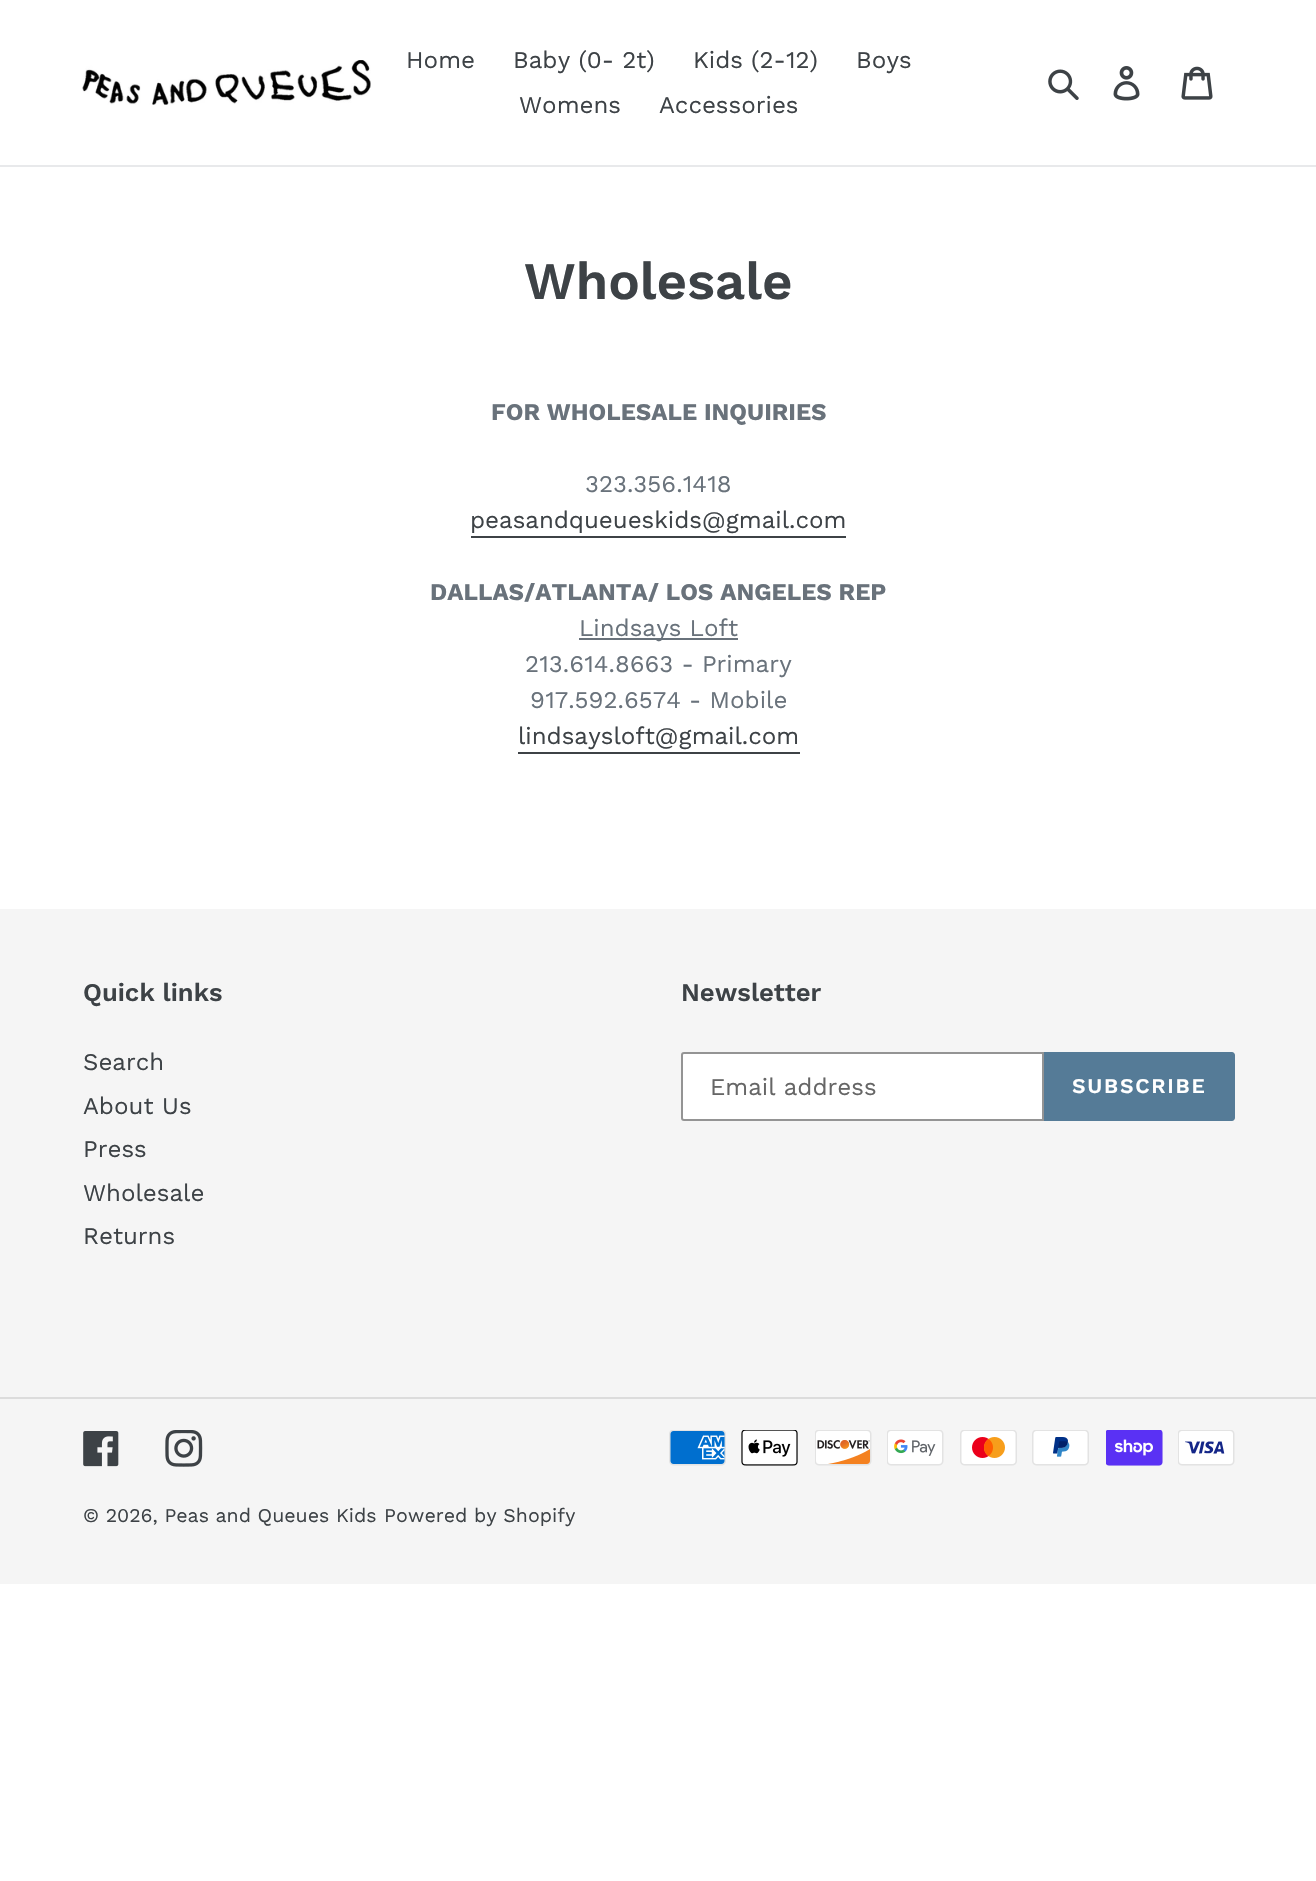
void draw(SkCanvas* canvas) {
	SkPaint paint;
	paint.setAntiAlias(true);
	auto spacedText = [&](const char* s, float x, float y, const SkFont& font, const SkPaint& ink, float letter, float word) {
		std::vector<SkGlyphID> glyphs(font.countText(s, strlen(s), SkTextEncoding::kUTF8));
		std::vector<float> xs(glyphs.size());
		font.textToGlyphs(s, strlen(s), SkTextEncoding::kUTF8, glyphs);
		font.getXPos(glyphs, xs, x);
		float extra = 0;
		for (size_t i = 0; i < glyphs.size(); i++) {
			xs[i] += extra;
			extra += letter + word * (glyphs[i] == font.unicharToGlyph(' '));
		}
		canvas->drawTextBlob(SkTextBlob::MakeFromPosHGlyphs(glyphs, xs, y, font), 0, 0, ink);
	};
	auto svgPath = [&](const char* data, bool evenOdd = false) {
		SkPath result = *SkParsePath::FromSVGString(data);
		if (evenOdd) result.setFillType(SkPathFillType::kEvenOdd);
		return result;
	};
	canvas->clear(0xffffffff);
	paint.setColor(0xffe8e9eb);
	canvas->drawRect(SkRect::MakeXYWH(0, 165, 1316, 2), paint);
	canvas->drawImageRect(SkImages::DeferredFromEncodedData(SkData::MakeFromFileName("img1.png")), SkRect::MakeXYWH(82, 60, 289, 45), SkSamplingOptions());
	SkFont f1(fontMgr->matchFamilyStyle("Work Sans", SkFontStyle::Normal()), 24);
	f1.setSubpixel(true);
	paint.setColor(0xff3d4246);
	canvas->drawString("Home", 406, 68, f1, paint);
	canvas->drawString("Baby (0- 2t)", 513, 68, f1, paint);
	canvas->drawString("Kids (2-12)", 693, 68, f1, paint);
	canvas->drawString("Boys", 856, 68, f1, paint);
	canvas->drawString("Womens", 519, 113, f1, paint);
	canvas->drawString("Accessories", 659, 113, f1, paint);
	canvas->drawImageRect(SkImages::DeferredFromEncodedData(SkData::MakeFromFileName("img2.png")), SkRect::MakeXYWH(1048, 69, 31, 31), SkSamplingOptions());
	canvas->drawImageRect(SkImages::DeferredFromEncodedData(SkData::MakeFromFileName("img3.png")), SkRect::MakeXYWH(1113, 66, 27, 35), SkSamplingOptions());
	canvas->drawImageRect(SkImages::DeferredFromEncodedData(SkData::MakeFromFileName("img4.png")), SkRect::MakeXYWH(1181, 66, 32, 34), SkSamplingOptions());
	SkFont f2(fontMgr->matchFamilyStyle("Work Sans", SkFontStyle(600, SkFontStyle::kNormal_Width, SkFontStyle::kUpright_Slant)), 52.5);
	f2.setSubpixel(true);
	canvas->drawString("Wholesale", 524, 299, f2, paint);
	SkFont f3(fontMgr->matchFamilyStyle("Work Sans", SkFontStyle::Bold()), 24);
	f3.setSubpixel(true);
	paint.setColor(0xff69727b);
	canvas->drawString("FOR WHOLESALE INQUIRIES", 491, 420, f3, paint);
	canvas->drawString("323.356.1418", 585, 492, f1, paint);
	paint.setColor(0xff3d4246);
	canvas->drawString("peasandqueueskids@gmail.com", 470, 528, f1, paint);
	canvas->drawRect(SkRect::MakeXYWH(471, 536, 375, 2), paint);
	paint.setColor(0xff69727b);
	canvas->drawString("DALLAS/ATLANTA/ LOS ANGELES REP", 430, 600, f3, paint);
	canvas->drawRect(SkRect::MakeXYWH(579, 638, 159, 2), paint);
	canvas->drawString("Lindsays Loft", 579, 636, f1, paint);
	canvas->drawString("213.614.8663 - Primary", 525, 672, f1, paint);
	canvas->drawString("917.592.6574 - Mobile", 530, 708, f1, paint);
	paint.setColor(0xff3d4246);
	canvas->drawString("lindsaysloft@gmail.com", 518, 744, f1, paint);
	canvas->drawRect(SkRect::MakeXYWH(518, 752, 282, 2), paint);
	paint.setColor(0xfff5f5f5);
	canvas->drawRect(SkRect::MakeXYWH(0, 909, 1316, 675), paint);
	SkFont f4(fontMgr->matchFamilyStyle("Work Sans", SkFontStyle(600, SkFontStyle::kNormal_Width, SkFontStyle::kUpright_Slant)), 25.5);
	f4.setSubpixel(true);
	paint.setColor(0xff3d4246);
	canvas->drawString("Quick links", 83, 1001, f4, paint);
	canvas->drawString("Search", 83, 1070, f1, paint);
	canvas->drawString("About Us", 83, 1114, f1, paint);
	canvas->drawString("Press", 83, 1157, f1, paint);
	canvas->drawString("Wholesale", 83, 1201, f1, paint);
	canvas->drawString("Returns", 83, 1244, f1, paint);
	canvas->drawString("Newsletter", 681, 1001, f4, paint);
	paint.setColor(0xffffffff);
	canvas->drawPath(svgPath("M684 1053H1043V1120H684C683 1120 682 1119 682 1118V1055C682 1054 683 1053 684 1053Z"), paint);
	paint.setStroke(true);
	paint.setStrokeWidth(2);
	paint.setColor(0xff949494);
	canvas->drawPath(svgPath("M684 1053H1043V1120H684C683 1120 682 1119 682 1118V1055C682 1054 683 1053 684 1053Z"), paint);
	paint.setStroke(false);
	paint.setColor(0xff666666);
	canvas->drawString("Email address", 710, 1095, f1, paint);
	paint.setColor(0xff557b97);
	canvas->drawPath(svgPath("M1044 1052H1232C1233.5 1052 1235 1053.5 1235 1055V1118C1235 1119.5 1233.5 1121 1232 1121H1044Z"), paint);
	SkFont f5(fontMgr->matchFamilyStyle("Work Sans", SkFontStyle(600, SkFontStyle::kNormal_Width, SkFontStyle::kUpright_Slant)), 21);
	f5.setSubpixel(true);
	paint.setColor(0xffffffff);
	spacedText("SUBSCRIBE", 1072, 1093, f5, paint, 1.75, 0);
	paint.setColor(0xffdcdcdc);
	canvas->drawRect(SkRect::MakeXYWH(0, 1397, 1316, 2), paint);
	canvas->drawImageRect(SkImages::DeferredFromEncodedData(SkData::MakeFromFileName("img5.png")), SkRect::MakeXYWH(83, 1431, 36, 36), SkSamplingOptions());
	canvas->drawImageRect(SkImages::DeferredFromEncodedData(SkData::MakeFromFileName("img6.png")), SkRect::MakeXYWH(165, 1430, 38, 37), SkSamplingOptions());
	canvas->drawImageRect(SkImages::DeferredFromEncodedData(SkData::MakeFromFileName("img7.png")), SkRect::MakeXYWH(669, 1430, 57, 36), SkSamplingOptions());
	canvas->drawImageRect(SkImages::DeferredFromEncodedData(SkData::MakeFromFileName("img8.png")), SkRect::MakeXYWH(741, 1430, 57, 36), SkSamplingOptions());
	canvas->drawImageRect(SkImages::DeferredFromEncodedData(SkData::MakeFromFileName("img9.png")), SkRect::MakeXYWH(815, 1430, 57, 36), SkSamplingOptions());
	canvas->drawImageRect(SkImages::DeferredFromEncodedData(SkData::MakeFromFileName("img10.png")), SkRect::MakeXYWH(887, 1430, 57, 36), SkSamplingOptions());
	canvas->drawImageRect(SkImages::DeferredFromEncodedData(SkData::MakeFromFileName("img11.png")), SkRect::MakeXYWH(960, 1430, 57, 36), SkSamplingOptions());
	canvas->drawImageRect(SkImages::DeferredFromEncodedData(SkData::MakeFromFileName("img12.png")), SkRect::MakeXYWH(1032, 1430, 57, 36), SkSamplingOptions());
	canvas->drawImageRect(SkImages::DeferredFromEncodedData(SkData::MakeFromFileName("img13.png")), SkRect::MakeXYWH(1106, 1430, 57, 36), SkSamplingOptions());
	canvas->drawImageRect(SkImages::DeferredFromEncodedData(SkData::MakeFromFileName("img14.png")), SkRect::MakeXYWH(1178, 1430, 57, 36), SkSamplingOptions());
	SkFont f6(fontMgr->matchFamilyStyle("Work Sans", SkFontStyle::Normal()), 19.5);
	f6.setSubpixel(true);
	paint.setColor(0xff3d4246);
	canvas->drawString("© 2026, Peas and Queues Kids", 83, 1522, f6, paint);
	canvas->drawString("Powered by Shopify", 384, 1522, f6, paint);
}
